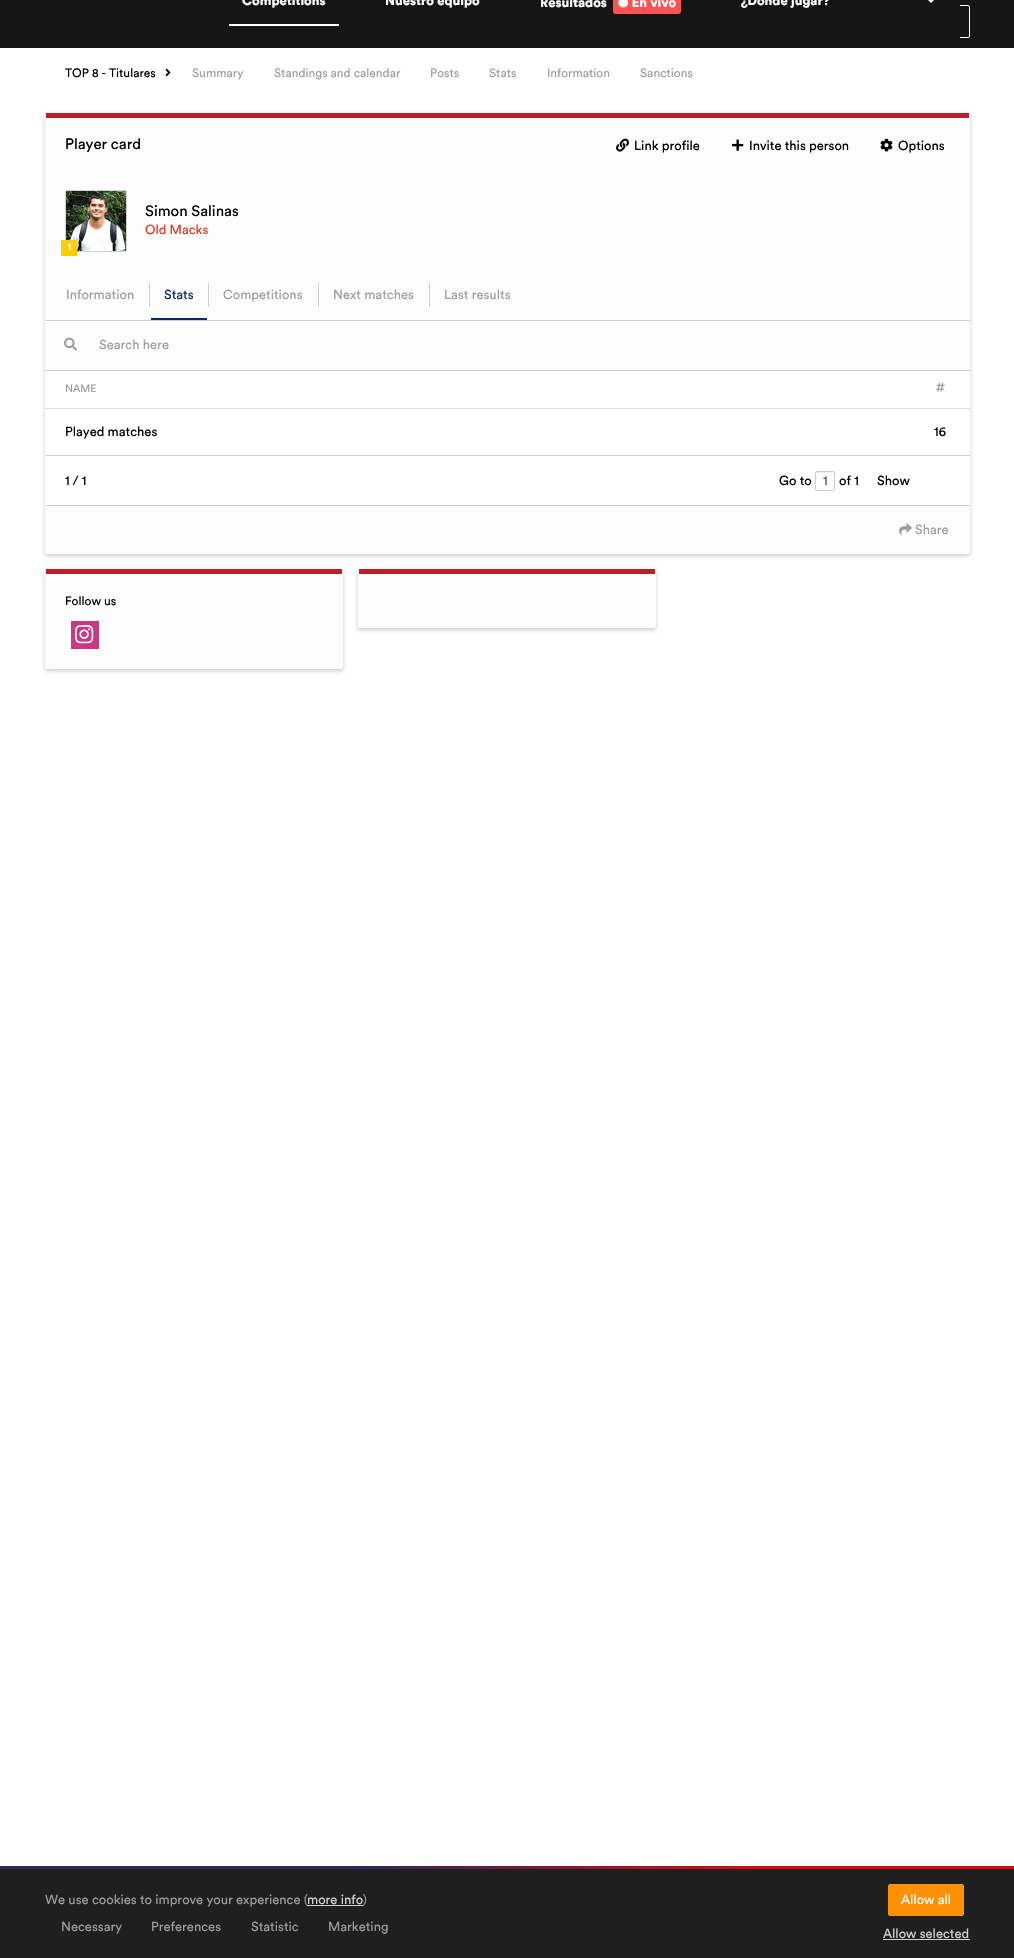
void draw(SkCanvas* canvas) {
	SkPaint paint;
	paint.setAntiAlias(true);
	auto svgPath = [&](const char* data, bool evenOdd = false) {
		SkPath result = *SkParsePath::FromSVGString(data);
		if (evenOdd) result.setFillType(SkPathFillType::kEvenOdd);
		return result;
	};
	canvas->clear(0xffffffff);
	paint.setColor(0xff151515);
	canvas->drawRect(SkRect::MakeXYWH(0, 0, 1014, 48), paint);
	SkFont f1(fontMgr->matchFamilyStyle("Circular", SkFontStyle(900, SkFontStyle::kNormal_Width, SkFontStyle::kUpright_Slant)), 13);
	f1.setSubpixel(true);
	paint.setColor(0xffffffff);
	canvas->drawString("Competitions", 242, 5, f1, paint);
	canvas->drawRect(SkRect::MakeXYWH(229, 24, 110, 2), paint);
	canvas->drawString("Nuestro equipo", 385, 5, f1, paint);
	canvas->drawString("Resultados", 540, 7, f1, paint);
	paint.setColor(0xffff5252);
	canvas->drawRoundRect(SkRect::MakeXYWH(613, -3, 68, 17), 3, 3, paint);
	paint.setColor(0xffffffff);
	canvas->drawString("● En vivo", 618, 7, f1, paint);
	canvas->drawString("¿Dónde jugar?", 741, 5, f1, paint);
	paint.setStroke(true);
	paint.setStrokeWidth(1);
	canvas->drawRoundRect(SkRect::MakeXYWH(935.5, 5.5, 34, 32), 1.5, 1.5, paint);
	paint.setStroke(false);
	paint.setColor(0xff151515);
	canvas->drawRect(SkRect::MakeXYWH(935, 5, 25, 33), paint);
	paint.setColor(0xffffffff);
	canvas->drawPath(svgPath("M927-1H935L931 3Z"), paint);
	SkFont f2(fontMgr->matchFamilyStyle("Circular", SkFontStyle::Normal()), 12);
	f2.setSubpixel(true);
	paint.setColor(0xff000000);
	canvas->drawString("TOP 8 - Titulares", 65, 77, f2, paint);
	canvas->drawImageRect(SkImages::DeferredFromEncodedData(SkData::MakeFromFileName("img1.png")), SkRect::MakeXYWH(165, 68, 6, 9), SkSamplingOptions());
	paint.setColor(0xff9e9e9e);
	canvas->drawString("Summary", 192, 77, f2, paint);
	canvas->drawString("Standings and calendar", 274, 77, f2, paint);
	canvas->drawString("Posts", 430, 77, f2, paint);
	canvas->drawString("Stats", 489, 77, f2, paint);
	canvas->drawString("Information", 547, 77, f2, paint);
	canvas->drawString("Sanctions", 640, 77, f2, paint);
	paint.setColor(0x33000000);
	paint.setMaskFilter(SkMaskFilter::MakeBlur(kNormal_SkBlurStyle, 2));
	canvas->drawRoundRect(SkRect::MakeXYWH(45, 115, 925, 441), 2, 2, paint);
	paint.setMaskFilter(nullptr);
	paint.setColor(0xfffcfcfc);
	canvas->drawRoundRect(SkRect::MakeXYWH(45, 113, 925, 441), 2, 2, paint);
	paint.setColor(0xffb6222b);
	canvas->drawRect(SkRect::MakeXYWH(46, 113, 923, 5), paint);
	SkFont f3(fontMgr->matchFamilyStyle("Circular", SkFontStyle::Normal()), 15);
	f3.setSubpixel(true);
	paint.setColor(0xff000000);
	canvas->drawString("Player card", 65, 149, f3, paint);
	canvas->drawImageRect(SkImages::DeferredFromEncodedData(SkData::MakeFromFileName("img2.png")), SkRect::MakeXYWH(616, 138, 13, 14), SkSamplingOptions());
	SkFont f4(fontMgr->matchFamilyStyle("Circular", SkFontStyle::Normal()), 13);
	f4.setSubpixel(true);
	canvas->drawString("Link profile", 634, 150, f4, paint);
	canvas->drawImageRect(SkImages::DeferredFromEncodedData(SkData::MakeFromFileName("img3.png")), SkRect::MakeXYWH(732, 139, 12, 12), SkSamplingOptions());
	canvas->drawString("Invite this person", 749, 150, f4, paint);
	canvas->drawImageRect(SkImages::DeferredFromEncodedData(SkData::MakeFromFileName("img4.png")), SkRect::MakeXYWH(880, 138, 13, 14), SkSamplingOptions());
	canvas->drawString("Options", 898, 150, f4, paint);
	canvas->drawString("Simon Salinas", 145, 216, f3, paint);
	paint.setColor(0xffe03922);
	canvas->drawString("Old Macks", 145, 234, f4, paint);
	paint.setStroke(true);
	paint.setColor(0xffd1d1d1);
	canvas->drawRoundRect(SkRect::MakeXYWH(65.5, 190.5, 61, 61), 1.5, 1.5, paint);
	canvas->drawImageRect(SkImages::DeferredFromEncodedData(SkData::MakeFromFileName("img5.png")), SkRect::MakeXYWH(66, 191, 60, 60), SkSamplingOptions());
	paint.setStroke(false);
	paint.setColor(0xffffcd00);
	canvas->drawRect(SkRect::MakeXYWH(61, 240, 16, 16), paint);
	SkFont f5(fontMgr->matchFamilyStyle("Circular", SkFontStyle(900, SkFontStyle::kNormal_Width, SkFontStyle::kUpright_Slant)), 10.5);
	f5.setSubpixel(true);
	paint.setColor(0xffffffff);
	canvas->drawString("1", 67, 250, f5, paint);
	paint.setColor(0xff9e9e9e);
	canvas->drawString("Information", 66, 299, f4, paint);
	paint.setColor(0xffd1d1d1);
	canvas->drawRect(SkRect::MakeXYWH(149, 283, 1, 24), paint);
	paint.setColor(0xff042d61);
	canvas->drawString("Stats", 164, 299, f4, paint);
	canvas->drawRect(SkRect::MakeXYWH(151, 318, 56, 2), paint);
	paint.setColor(0xffd1d1d1);
	canvas->drawRect(SkRect::MakeXYWH(208, 283, 1, 24), paint);
	paint.setColor(0xff9e9e9e);
	canvas->drawString("Competitions", 223, 299, f4, paint);
	paint.setColor(0xffd1d1d1);
	canvas->drawRect(SkRect::MakeXYWH(318, 283, 1, 24), paint);
	paint.setColor(0xff9e9e9e);
	canvas->drawString("Next matches", 333, 299, f4, paint);
	paint.setColor(0xffd1d1d1);
	canvas->drawRect(SkRect::MakeXYWH(429, 283, 1, 24), paint);
	paint.setColor(0xff9e9e9e);
	canvas->drawString("Last results", 444, 299, f4, paint);
	paint.setColor(0xffffffff);
	canvas->drawRect(SkRect::MakeXYWH(45, 371, 925, 134), paint);
	paint.setColor(0xffd1d1d1);
	canvas->drawRect(SkRect::MakeXYWH(45, 320, 925, 1), paint);
	canvas->drawImageRect(SkImages::DeferredFromEncodedData(SkData::MakeFromFileName("img6.png")), SkRect::MakeXYWH(64, 337, 13, 14), SkSamplingOptions());
	paint.setColor(0xff9e9e9e);
	canvas->drawString("Search here", 99, 349, f4, paint);
	paint.setColor(0xffd1d1d1);
	canvas->drawRect(SkRect::MakeXYWH(45, 370, 925, 1), paint);
	canvas->drawRect(SkRect::MakeXYWH(45, 455, 925, 1), paint);
	SkFont f6(fontMgr->matchFamilyStyle("Circular", SkFontStyle::Normal()), 10.5);
	f6.setSubpixel(true);
	paint.setColor(0xff9e9e9e);
	canvas->drawString("NAME", 65, 392, f6, paint);
	canvas->drawImageRect(SkImages::DeferredFromEncodedData(SkData::MakeFromFileName("img7.png")), SkRect::MakeXYWH(936, 382, 9, 10), SkSamplingOptions());
	paint.setColor(0xff000000);
	canvas->drawString("Played matches", 65, 436, f4, paint);
	paint.setColor(0xffdddddd);
	canvas->drawRect(SkRect::MakeXYWH(45, 408, 925, 1), paint);
	paint.setColor(0xff000000);
	canvas->drawString("16", 934, 436, f4, paint);
	paint.setColor(0xffd1d1d1);
	canvas->drawRect(SkRect::MakeXYWH(45, 505, 925, 1), paint);
	paint.setColor(0xff000000);
	canvas->drawString("1 / 1", 65, 485, f4, paint);
	canvas->drawString("Go to", 779, 485, f4, paint);
	paint.setColor(0xffececec);
	canvas->drawPath(svgPath("M817 473C820 473 833 472 834 473C834 472.5 833.5 472 833 472H822.5C818 472 816 470.5 816 474.5C816 473.5 816.5 473 817 473Z"), paint);
	paint.setStroke(true);
	paint.setColor(0xffcccccc);
	canvas->drawRoundRect(SkRect::MakeXYWH(815.5, 471.5, 19, 19), 1.5, 1.5, paint);
	paint.setStroke(false);
	paint.setColor(0xff545454);
	canvas->drawString("1", 823, 485, f4, paint);
	paint.setColor(0xff000000);
	canvas->drawString("of 1", 839, 485, f4, paint);
	canvas->drawString("Show", 877, 485, f4, paint);
	canvas->drawImageRect(SkImages::DeferredFromEncodedData(SkData::MakeFromFileName("img8.png")), SkRect::MakeXYWH(899, 523, 13, 12), SkSamplingOptions());
	paint.setColor(0xff9e9e9e);
	canvas->drawString("Share", 915, 534, f4, paint);
	paint.setColor(0x33000000);
	paint.setMaskFilter(SkMaskFilter::MakeBlur(kNormal_SkBlurStyle, 2));
	canvas->drawRoundRect(SkRect::MakeXYWH(45, 571, 298, 100), 2, 2, paint);
	paint.setMaskFilter(nullptr);
	paint.setColor(0xfffcfcfc);
	canvas->drawRoundRect(SkRect::MakeXYWH(45, 569, 298, 100), 2, 2, paint);
	paint.setColor(0xffb6222b);
	canvas->drawRect(SkRect::MakeXYWH(46, 569, 296, 5), paint);
	paint.setColor(0xff000000);
	canvas->drawString("Follow us", 65, 605, f2, paint);
	paint.setColor(0xffc83981);
	canvas->drawRect(SkRect::MakeXYWH(71, 621, 28, 28), paint);
	canvas->drawImageRect(SkImages::DeferredFromEncodedData(SkData::MakeFromFileName("img9.png")), SkRect::MakeXYWH(75, 625, 19, 19), SkSamplingOptions());
	paint.setColor(0x33000000);
	paint.setMaskFilter(SkMaskFilter::MakeBlur(kNormal_SkBlurStyle, 2));
	canvas->drawRoundRect(SkRect::MakeXYWH(358, 571, 298, 59), 2, 2, paint);
	paint.setMaskFilter(nullptr);
	paint.setColor(0xfffcfcfc);
	canvas->drawRoundRect(SkRect::MakeXYWH(358, 569, 298, 59), 2, 2, paint);
	paint.setColor(0xffb6222b);
	canvas->drawRect(SkRect::MakeXYWH(359, 569, 296, 5), paint);
	{
		const SkColor colors[] = {0xff292a5c, 0xffe30613};
		const float stops[] = {0.35, 0.74};
		const SkPoint ends[] = {{0, 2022}, {1014, 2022}};
		paint.setShader(SkGradientShader::MakeLinear(ends, colors, stops, 2, SkTileMode::kClamp));
		paint.setAlpha(255);
	}
	canvas->drawRect(SkRect::MakeXYWH(0, 1866, 1014, 3), paint);
	paint.setShader(nullptr);
	paint.setColor(0xff1f1f1f);
	canvas->drawRect(SkRect::MakeXYWH(0, 1869, 1014, 89), paint);
	paint.setColor(0xff9e9e9e);
	canvas->drawString("We use cookies to improve your experience (", 45, 1904, f4, paint);
	paint.setColor(0xffd1d1d1);
	canvas->drawString("more info", 307, 1904, f4, paint);
	canvas->drawRect(SkRect::MakeXYWH(307, 1905, 56, 1), paint);
	paint.setColor(0xff9e9e9e);
	canvas->drawString(")", 363, 1904, f4, paint);
	canvas->drawString("Necessary", 61, 1931, f4, paint);
	canvas->drawString("Preferences", 151, 1931, f4, paint);
	canvas->drawString("Statistic", 251, 1931, f4, paint);
	canvas->drawString("Marketing", 328, 1931, f4, paint);
	paint.setColor(0xfffe9003);
	canvas->drawRoundRect(SkRect::MakeXYWH(888.5, 1884.5, 75, 31), 1.5, 1.5, paint);
	paint.setStroke(true);
	canvas->drawRoundRect(SkRect::MakeXYWH(888.5, 1884.5, 75, 31), 1.5, 1.5, paint);
	paint.setStroke(false);
	paint.setColor(0xffffffff);
	canvas->drawString("Allow all", 901, 1904, f4, paint);
	paint.setColor(0xffd1d1d1);
	canvas->drawString("Allow selected", 883, 1938, f4, paint);
	canvas->drawRect(SkRect::MakeXYWH(883, 1939, 87, 1), paint);
}
